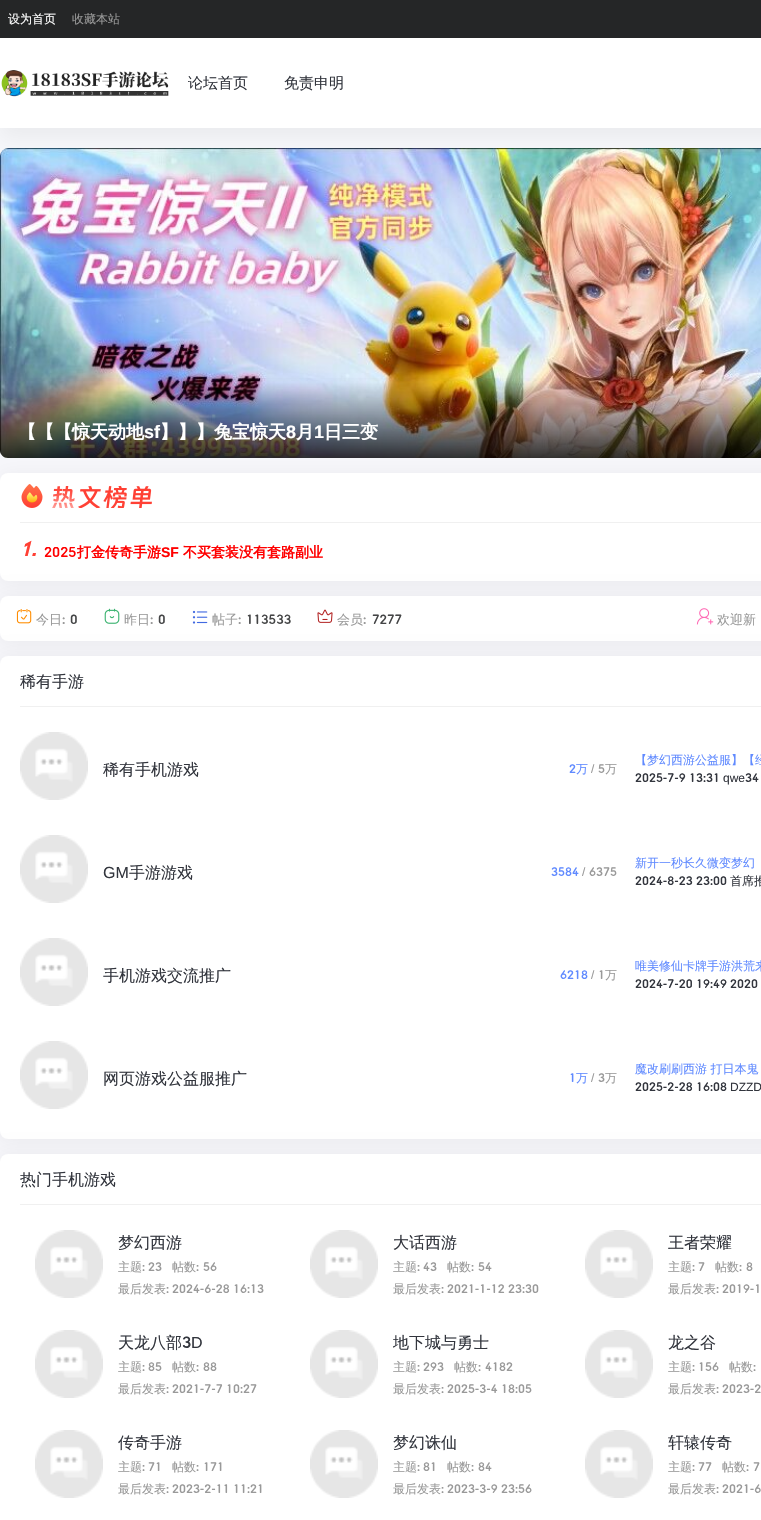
void draw(SkCanvas* canvas) {
	SkPaint paint;
	paint.setAntiAlias(true);
	auto svgPath = [&](const char* data, bool evenOdd = false) {
		SkPath result = *SkParsePath::FromSVGString(data);
		if (evenOdd) result.setFillType(SkPathFillType::kEvenOdd);
		return result;
	};
	canvas->clear(0xfff7f7fb);
	paint.setColor(0x0d060b06);
	paint.setMaskFilter(SkMaskFilter::MakeBlur(kNormal_SkBlurStyle, 10));
	canvas->drawRect(SkRect::MakeXYWH(0, 48, 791, 90), paint);
	paint.setMaskFilter(nullptr);
	paint.setColor(0xff252627);
	canvas->drawRect(SkRect::MakeXYWH(0, 0, 761, 38), paint);
	SkFont f1(fontMgr->matchFamilyStyle("WenQuanYi Zen Hei", SkFontStyle(500, SkFontStyle::kNormal_Width, SkFontStyle::kUpright_Slant)), 12);
	f1.setSubpixel(true);
	paint.setColor(0xffffffff);
	canvas->drawString("设为首页", 8, 23, f1, paint);
	paint.setColor(0xff999999);
	canvas->drawString("收藏本站", 72, 23, f1, paint);
	paint.setColor(0xffffffff);
	canvas->drawRect(SkRect::MakeXYWH(0, 38, 761, 90), paint);
	canvas->drawImageRect(SkImages::DeferredFromEncodedData(SkData::MakeFromFileName("img1.png")), SkRect::MakeXYWH(1, 70, 168, 27), SkSamplingOptions());
	SkFont f2(fontMgr->matchFamilyStyle("WenQuanYi Zen Hei", SkFontStyle(500, SkFontStyle::kNormal_Width, SkFontStyle::kUpright_Slant)), 15);
	f2.setSubpixel(true);
	paint.setColor(0xff32353d);
	canvas->drawString("论坛首页", 188, 88, f2, paint);
	canvas->drawString("免责申明", 284, 88, f2, paint);
	paint.setColor(0x0d000000);
	paint.setMaskFilter(SkMaskFilter::MakeBlur(kNormal_SkBlurStyle, 10));
	canvas->drawRoundRect(SkRect::MakeXYWH(0, 475, 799, 108), 8, 8, paint);
	paint.setMaskFilter(nullptr);
	canvas->drawImageRect(SkImages::DeferredFromEncodedData(SkData::MakeFromFileName("img2.png")), SkRect::MakeXYWH(0, 148, 761, 310), SkSamplingOptions());
	{
		const SkColor colors[] = {0x03000000, 0xcc000000};
		const float stops[] = {0.05, 1};
		const SkPoint ends[] = {{430, 378}, {430, 458}};
		paint.setShader(SkGradientShader::MakeLinear(ends, colors, stops, 2, SkTileMode::kClamp));
		paint.setAlpha(255);
	}
	canvas->drawPath(svgPath("M0 378H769V450C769 454.5 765.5 458 761 458H8C3.5 458 0 454.5 0 450Z"), paint);
	SkFont f3(fontMgr->matchFamilyStyle("WenQuanYi Zen Hei", SkFontStyle::Bold()), 18);
	f3.setSubpixel(true);
	paint.setShader(nullptr);
	paint.setColor(0xffffffff);
	canvas->drawString("【【【惊天动地", 18, 438, f3, paint);
	SkFont f4(fontMgr->matchFamilyStyle("Liberation Sans", SkFontStyle::Bold()), 18);
	f4.setSubpixel(true);
	canvas->drawString("sf", 144, 438, f4, paint);
	canvas->drawString("】】】兔宝惊天", 160, 438, f3, paint);
	canvas->drawString("8", 286, 438, f4, paint);
	canvas->drawString("月", 296, 438, f3, paint);
	canvas->drawString("1", 314, 438, f4, paint);
	canvas->drawString("日三变", 324, 438, f3, paint);
	canvas->drawRoundRect(SkRect::MakeXYWH(0, 473, 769, 108), 8, 8, paint);
	paint.setColor(0xfff0f0f0);
	canvas->drawRect(SkRect::MakeXYWH(20, 522, 741, 1), paint);
	canvas->drawImageRect(SkImages::DeferredFromEncodedData(SkData::MakeFromFileName("img3.png")), SkRect::MakeXYWH(21, 484, 22, 24), SkSamplingOptions());
	canvas->drawImageRect(SkImages::DeferredFromEncodedData(SkData::MakeFromFileName("img4.png")), SkRect::MakeXYWH(52, 486, 100, 22), SkSamplingOptions());
	SkFont f5(fontMgr->matchFamilyStyle("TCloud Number", SkFontStyle::BoldItalic()), 20);
	f5.setSubpixel(true);
	paint.setColor(0xffff4034);
	canvas->drawString("1.", 20, 556, f5, paint);
	SkFont f6(fontMgr->matchFamilyStyle("Lato", SkFontStyle::Bold()), 14);
	f6.setSubpixel(true);
	paint.setColor(0xffff0000);
	canvas->drawString("2025", 44, 557, f6, paint);
	SkFont f7(fontMgr->matchFamilyStyle("WenQuanYi Zen Hei", SkFontStyle::Bold()), 14);
	f7.setSubpixel(true);
	canvas->drawString("打金传奇手游", 77, 557, f7, paint);
	SkFont f8(fontMgr->matchFamilyStyle("Liberation Sans", SkFontStyle::Bold()), 14);
	f8.setSubpixel(true);
	canvas->drawString("SF", 161, 557, f8, paint);
	canvas->drawString("不买套装没有套路副业", 183, 557, f7, paint);
	paint.setColor(0x0d000000);
	paint.setMaskFilter(SkMaskFilter::MakeBlur(kNormal_SkBlurStyle, 10));
	canvas->drawRoundRect(SkRect::MakeXYWH(0, 598, 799, 45), 8, 8, paint);
	paint.setMaskFilter(nullptr);
	paint.setColor(0xffffffff);
	canvas->drawRoundRect(SkRect::MakeXYWH(0, 596, 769, 45), 8, 8, paint);
	canvas->drawImageRect(SkImages::DeferredFromEncodedData(SkData::MakeFromFileName("img5.png")), SkRect::MakeXYWH(16, 609, 16, 15), SkSamplingOptions());
	SkFont f9(fontMgr->matchFamilyStyle("WenQuanYi Zen Hei", SkFontStyle(500, SkFontStyle::kNormal_Width, SkFontStyle::kUpright_Slant)), 13);
	f9.setSubpixel(true);
	paint.setColor(0xff999999);
	canvas->drawString("今日", 36, 624, f9, paint);
	SkFont f10(fontMgr->matchFamilyStyle("Lato", SkFontStyle::Bold()), 13);
	f10.setSubpixel(true);
	canvas->drawString(":", 62, 624, f10, paint);
	paint.setColor(0xff444546);
	canvas->drawString("0", 70, 624, f10, paint);
	canvas->drawImageRect(SkImages::DeferredFromEncodedData(SkData::MakeFromFileName("img6.png")), SkRect::MakeXYWH(104, 608, 16, 16), SkSamplingOptions());
	paint.setColor(0xff999999);
	canvas->drawString("昨日", 124, 624, f9, paint);
	canvas->drawString(":", 150, 624, f10, paint);
	paint.setColor(0xff444546);
	canvas->drawString("0", 158, 624, f10, paint);
	canvas->drawImageRect(SkImages::DeferredFromEncodedData(SkData::MakeFromFileName("img7.png")), SkRect::MakeXYWH(192, 610, 16, 14), SkSamplingOptions());
	paint.setColor(0xff999999);
	canvas->drawString("帖子", 212, 624, f9, paint);
	canvas->drawString(":", 238, 624, f10, paint);
	paint.setColor(0xff444546);
	canvas->drawString("113533", 246, 624, f10, paint);
	canvas->drawImageRect(SkImages::DeferredFromEncodedData(SkData::MakeFromFileName("img8.png")), SkRect::MakeXYWH(317, 609, 16, 14), SkSamplingOptions());
	paint.setColor(0xff999999);
	canvas->drawString("会员", 337, 624, f9, paint);
	canvas->drawString(":", 363, 624, f10, paint);
	paint.setColor(0xff444546);
	canvas->drawString("7277", 372, 624, f10, paint);
	canvas->drawImageRect(SkImages::DeferredFromEncodedData(SkData::MakeFromFileName("img9.png")), SkRect::MakeXYWH(696, 608, 18, 17), SkSamplingOptions());
	paint.setColor(0xff999999);
	canvas->drawString("欢迎新", 717, 624, f9, paint);
	paint.setColor(0x0d000000);
	paint.setMaskFilter(SkMaskFilter::MakeBlur(kNormal_SkBlurStyle, 10));
	canvas->drawRoundRect(SkRect::MakeXYWH(0, 658, 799, 483), 8, 8, paint);
	paint.setMaskFilter(nullptr);
	paint.setColor(0xffffffff);
	canvas->drawRoundRect(SkRect::MakeXYWH(0, 656, 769, 483), 8, 8, paint);
	SkFont f11(fontMgr->matchFamilyStyle("WenQuanYi Zen Hei", SkFontStyle(500, SkFontStyle::kNormal_Width, SkFontStyle::kUpright_Slant)), 16);
	f11.setSubpixel(true);
	paint.setColor(0xff32353d);
	canvas->drawString("稀有手游", 20, 687, f11, paint);
	paint.setColor(0xfff0f0f0);
	canvas->drawRect(SkRect::MakeXYWH(20, 706, 741, 1), paint);
	canvas->drawImageRect(SkImages::DeferredFromEncodedData(SkData::MakeFromFileName("img10.png")), SkRect::MakeXYWH(20, 732, 68, 68), SkSamplingOptions());
	paint.setColor(0xff32353d);
	canvas->drawString("稀有手机游戏", 103, 775, f11, paint);
	SkFont f12(fontMgr->matchFamilyStyle("Lato", SkFontStyle::Bold()), 12);
	f12.setSubpixel(true);
	paint.setColor(0xff608aff);
	canvas->drawString("2", 569, 773, f12, paint);
	canvas->drawString("万", 576, 773, f1, paint);
	SkFont f13(fontMgr->matchFamilyStyle("Liberation Sans", SkFontStyle::Normal()), 12);
	f13.setSubpixel(true);
	paint.setColor(0xff999999);
	canvas->drawString("/", 591, 773, f13, paint);
	canvas->drawString("5", 598, 773, f12, paint);
	canvas->drawString("万", 605, 773, f1, paint);
	paint.setColor(0xff608aff);
	canvas->drawString("【梦幻西游公益服】【经", 635, 764, f1, paint);
	paint.setColor(0xff32353d);
	canvas->drawString("2025-7-9", 635, 782, f12, paint);
	canvas->drawString("13:31", 689, 782, f12, paint);
	canvas->drawString("qwe", 723, 782, f13, paint);
	canvas->drawString("34", 745, 782, f12, paint);
	canvas->drawImageRect(SkImages::DeferredFromEncodedData(SkData::MakeFromFileName("img11.png")), SkRect::MakeXYWH(20, 835, 68, 68), SkSamplingOptions());
	SkFont f14(fontMgr->matchFamilyStyle("Liberation Sans", SkFontStyle::Normal()), 16);
	f14.setSubpixel(true);
	canvas->drawString("GM", 103, 878, f14, paint);
	canvas->drawString("手游游戏", 129, 878, f11, paint);
	paint.setColor(0xff608aff);
	canvas->drawString("3584", 551, 876, f12, paint);
	paint.setColor(0xff999999);
	canvas->drawString("/", 582, 876, f13, paint);
	canvas->drawString("6375", 589, 876, f12, paint);
	paint.setColor(0xff608aff);
	canvas->drawString("新开一秒长久微变梦幻", 635, 867, f1, paint);
	paint.setColor(0xff32353d);
	canvas->drawString("2024-8-23", 635, 885, f12, paint);
	canvas->drawString("23:00", 696, 885, f12, paint);
	canvas->drawString("首席推", 730, 885, f1, paint);
	canvas->drawImageRect(SkImages::DeferredFromEncodedData(SkData::MakeFromFileName("img10.png")), SkRect::MakeXYWH(20, 938, 68, 68), SkSamplingOptions());
	canvas->drawString("手机游戏交流推广", 103, 981, f11, paint);
	paint.setColor(0xff608aff);
	canvas->drawString("6218", 560, 979, f12, paint);
	paint.setColor(0xff999999);
	canvas->drawString("/", 591, 979, f13, paint);
	canvas->drawString("1", 598, 979, f12, paint);
	canvas->drawString("万", 605, 979, f1, paint);
	paint.setColor(0xff608aff);
	canvas->drawString("唯美修仙卡牌手游洪荒来", 635, 970, f1, paint);
	paint.setColor(0xff32353d);
	canvas->drawString("2024-7-20", 635, 988, f12, paint);
	canvas->drawString("19:49", 696, 988, f12, paint);
	canvas->drawString("2020", 730, 988, f12, paint);
	canvas->drawImageRect(SkImages::DeferredFromEncodedData(SkData::MakeFromFileName("img12.png")), SkRect::MakeXYWH(20, 1041, 68, 68), SkSamplingOptions());
	canvas->drawString("网页游戏公益服推广", 103, 1084, f11, paint);
	paint.setColor(0xff608aff);
	canvas->drawString("1", 569, 1082, f12, paint);
	canvas->drawString("万", 576, 1082, f1, paint);
	paint.setColor(0xff999999);
	canvas->drawString("/", 591, 1082, f13, paint);
	canvas->drawString("3", 598, 1082, f12, paint);
	canvas->drawString("万", 605, 1082, f1, paint);
	paint.setColor(0xff608aff);
	canvas->drawString("魔改刷刷西游 打日本鬼", 635, 1073, f1, paint);
	paint.setColor(0xff32353d);
	canvas->drawString("2025-2-28", 635, 1091, f12, paint);
	canvas->drawString("16:08", 696, 1091, f12, paint);
	canvas->drawString("DZZD", 730, 1091, f13, paint);
	paint.setColor(0x0d000000);
	paint.setMaskFilter(SkMaskFilter::MakeBlur(kNormal_SkBlurStyle, 10));
	canvas->drawRoundRect(SkRect::MakeXYWH(0, 1156, 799, 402), 8, 8, paint);
	paint.setMaskFilter(nullptr);
	paint.setColor(0xffffffff);
	canvas->drawRoundRect(SkRect::MakeXYWH(0, 1154, 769, 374), 8, 8, paint);
	paint.setColor(0xff32353d);
	canvas->drawString("热门手机游戏", 20, 1185, f11, paint);
	paint.setColor(0xfff0f0f0);
	canvas->drawRect(SkRect::MakeXYWH(20, 1204, 741, 1), paint);
	canvas->drawImageRect(SkImages::DeferredFromEncodedData(SkData::MakeFromFileName("img13.png")), SkRect::MakeXYWH(35, 1230, 68, 68), SkSamplingOptions());
	paint.setColor(0xff32353d);
	canvas->drawString("梦幻西游", 118, 1248, f11, paint);
	paint.setColor(0xff999999);
	canvas->drawString("主题", 118, 1271, f1, paint);
	canvas->drawString(":", 142, 1271, f12, paint);
	canvas->drawString("23", 148, 1271, f12, paint);
	canvas->drawString("帖数", 172, 1271, f1, paint);
	canvas->drawString(":", 196, 1271, f12, paint);
	canvas->drawString("56", 203, 1271, f12, paint);
	canvas->drawString("最后发表", 118, 1293, f1, paint);
	canvas->drawString(":", 166, 1293, f12, paint);
	canvas->drawString("2024-6-28", 172, 1293, f12, paint);
	canvas->drawString("16:13", 233, 1293, f12, paint);
	canvas->drawImageRect(SkImages::DeferredFromEncodedData(SkData::MakeFromFileName("img14.png")), SkRect::MakeXYWH(310, 1230, 68, 68), SkSamplingOptions());
	paint.setColor(0xff32353d);
	canvas->drawString("大话西游", 393, 1248, f11, paint);
	paint.setColor(0xff999999);
	canvas->drawString("主题", 393, 1271, f1, paint);
	canvas->drawString(":", 417, 1271, f12, paint);
	canvas->drawString("43", 423, 1271, f12, paint);
	canvas->drawString("帖数", 447, 1271, f1, paint);
	canvas->drawString(":", 471, 1271, f12, paint);
	canvas->drawString("54", 478, 1271, f12, paint);
	canvas->drawString("最后发表", 393, 1293, f1, paint);
	canvas->drawString(":", 441, 1293, f12, paint);
	canvas->drawString("2021-1-12", 447, 1293, f12, paint);
	canvas->drawString("23:30", 508, 1293, f12, paint);
	canvas->drawImageRect(SkImages::DeferredFromEncodedData(SkData::MakeFromFileName("img15.png")), SkRect::MakeXYWH(585, 1230, 68, 68), SkSamplingOptions());
	paint.setColor(0xff32353d);
	canvas->drawString("王者荣耀", 668, 1248, f11, paint);
	paint.setColor(0xff999999);
	canvas->drawString("主题", 668, 1271, f1, paint);
	canvas->drawString(":", 692, 1271, f12, paint);
	canvas->drawString("7", 698, 1271, f12, paint);
	canvas->drawString("帖数", 715, 1271, f1, paint);
	canvas->drawString(":", 739, 1271, f12, paint);
	canvas->drawString("8", 746, 1271, f12, paint);
	canvas->drawString("最后发表", 668, 1293, f1, paint);
	canvas->drawString(":", 716, 1293, f12, paint);
	canvas->drawString("2019-1", 722, 1293, f12, paint);
	canvas->drawImageRect(SkImages::DeferredFromEncodedData(SkData::MakeFromFileName("img16.png")), SkRect::MakeXYWH(35, 1330, 68, 68), SkSamplingOptions());
	paint.setColor(0xff32353d);
	canvas->drawString("天龙八部", 118, 1348, f11, paint);
	SkFont f15(fontMgr->matchFamilyStyle("Lato", SkFontStyle::Bold()), 16);
	f15.setSubpixel(true);
	canvas->drawString("3", 182, 1348, f15, paint);
	canvas->drawString("D", 191, 1348, f14, paint);
	paint.setColor(0xff999999);
	canvas->drawString("主题", 118, 1371, f1, paint);
	canvas->drawString(":", 142, 1371, f12, paint);
	canvas->drawString("85", 148, 1371, f12, paint);
	canvas->drawString("帖数", 172, 1371, f1, paint);
	canvas->drawString(":", 196, 1371, f12, paint);
	canvas->drawString("88", 203, 1371, f12, paint);
	canvas->drawString("最后发表", 118, 1393, f1, paint);
	canvas->drawString(":", 166, 1393, f12, paint);
	canvas->drawString("2021-7-7", 172, 1393, f12, paint);
	canvas->drawString("10:27", 226, 1393, f12, paint);
	canvas->drawImageRect(SkImages::DeferredFromEncodedData(SkData::MakeFromFileName("img17.png")), SkRect::MakeXYWH(310, 1330, 68, 68), SkSamplingOptions());
	paint.setColor(0xff32353d);
	canvas->drawString("地下城与勇士", 393, 1348, f11, paint);
	paint.setColor(0xff999999);
	canvas->drawString("主题", 393, 1371, f1, paint);
	canvas->drawString(":", 417, 1371, f12, paint);
	canvas->drawString("293", 423, 1371, f12, paint);
	canvas->drawString("帖数", 454, 1371, f1, paint);
	canvas->drawString(":", 478, 1371, f12, paint);
	canvas->drawString("4182", 485, 1371, f12, paint);
	canvas->drawString("最后发表", 393, 1393, f1, paint);
	canvas->drawString(":", 441, 1393, f12, paint);
	canvas->drawString("2025-3-4", 447, 1393, f12, paint);
	canvas->drawString("18:05", 501, 1393, f12, paint);
	canvas->drawImageRect(SkImages::DeferredFromEncodedData(SkData::MakeFromFileName("img18.png")), SkRect::MakeXYWH(585, 1330, 68, 68), SkSamplingOptions());
	paint.setColor(0xff32353d);
	canvas->drawString("龙之谷", 668, 1348, f11, paint);
	paint.setColor(0xff999999);
	canvas->drawString("主题", 668, 1371, f1, paint);
	canvas->drawString(":", 692, 1371, f12, paint);
	canvas->drawString("156", 698, 1371, f12, paint);
	canvas->drawString("帖数", 729, 1371, f1, paint);
	canvas->drawString(":", 753, 1371, f12, paint);
	canvas->drawString("最后发表", 668, 1393, f1, paint);
	canvas->drawString(":", 716, 1393, f12, paint);
	canvas->drawString("2023-2", 722, 1393, f12, paint);
	canvas->drawImageRect(SkImages::DeferredFromEncodedData(SkData::MakeFromFileName("img19.png")), SkRect::MakeXYWH(35, 1430, 68, 68), SkSamplingOptions());
	paint.setColor(0xff32353d);
	canvas->drawString("传奇手游", 118, 1448, f11, paint);
	paint.setColor(0xff999999);
	canvas->drawString("主题", 118, 1471, f1, paint);
	canvas->drawString(":", 142, 1471, f12, paint);
	canvas->drawString("71", 148, 1471, f12, paint);
	canvas->drawString("帖数", 172, 1471, f1, paint);
	canvas->drawString(":", 196, 1471, f12, paint);
	canvas->drawString("171", 203, 1471, f12, paint);
	canvas->drawString("最后发表", 118, 1493, f1, paint);
	canvas->drawString(":", 166, 1493, f12, paint);
	canvas->drawString("2023-2-11", 172, 1493, f12, paint);
	canvas->drawString("11:21", 233, 1493, f12, paint);
	canvas->drawImageRect(SkImages::DeferredFromEncodedData(SkData::MakeFromFileName("img20.png")), SkRect::MakeXYWH(310, 1430, 68, 68), SkSamplingOptions());
	paint.setColor(0xff32353d);
	canvas->drawString("梦幻诛仙", 393, 1448, f11, paint);
	paint.setColor(0xff999999);
	canvas->drawString("主题", 393, 1471, f1, paint);
	canvas->drawString(":", 417, 1471, f12, paint);
	canvas->drawString("81", 423, 1471, f12, paint);
	canvas->drawString("帖数", 447, 1471, f1, paint);
	canvas->drawString(":", 471, 1471, f12, paint);
	canvas->drawString("84", 478, 1471, f12, paint);
	canvas->drawString("最后发表", 393, 1493, f1, paint);
	canvas->drawString(":", 441, 1493, f12, paint);
	canvas->drawString("2023-3-9", 447, 1493, f12, paint);
	canvas->drawString("23:56", 501, 1493, f12, paint);
	canvas->drawImageRect(SkImages::DeferredFromEncodedData(SkData::MakeFromFileName("img21.png")), SkRect::MakeXYWH(585, 1430, 68, 68), SkSamplingOptions());
	paint.setColor(0xff32353d);
	canvas->drawString("轩辕传奇", 668, 1448, f11, paint);
	paint.setColor(0xff999999);
	canvas->drawString("主题", 668, 1471, f1, paint);
	canvas->drawString(":", 692, 1471, f12, paint);
	canvas->drawString("77", 698, 1471, f12, paint);
	canvas->drawString("帖数", 722, 1471, f1, paint);
	canvas->drawString(":", 746, 1471, f12, paint);
	canvas->drawString("7", 753, 1471, f12, paint);
	canvas->drawString("最后发表", 668, 1493, f1, paint);
	canvas->drawString(":", 716, 1493, f12, paint);
	canvas->drawString("2021-6", 722, 1493, f12, paint);
}
